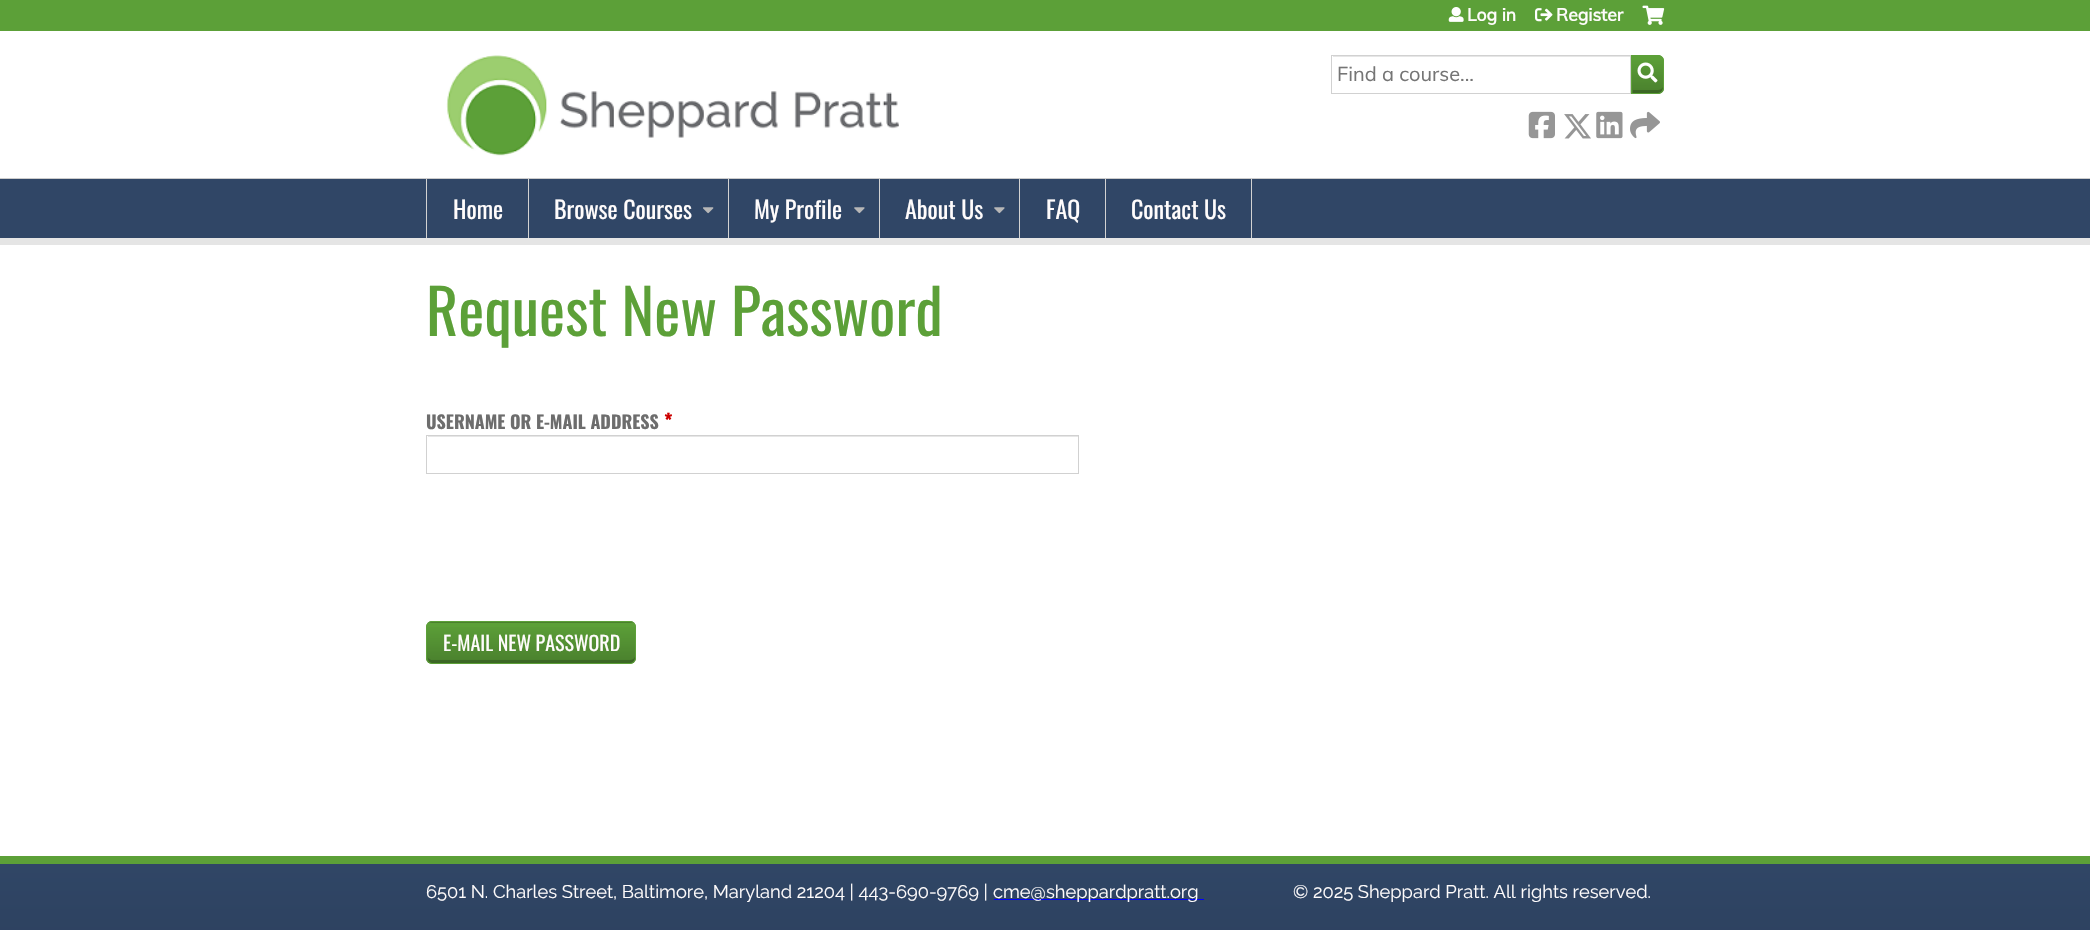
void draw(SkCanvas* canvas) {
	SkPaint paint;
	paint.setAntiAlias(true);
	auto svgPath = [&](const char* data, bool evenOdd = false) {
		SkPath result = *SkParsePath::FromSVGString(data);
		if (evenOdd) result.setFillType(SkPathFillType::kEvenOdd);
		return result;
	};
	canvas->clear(0xffffffff);
	paint.setColor(0xff304666);
	canvas->drawRect(SkRect::MakeXYWH(0, 179, 2090, 59), paint);
	paint.setColor(0xff5ca038);
	canvas->drawRect(SkRect::MakeXYWH(0, 0, 2090, 31), paint);
	canvas->drawImageRect(SkImages::DeferredFromEncodedData(SkData::MakeFromFileName("img1.png")), SkRect::MakeXYWH(1448, 7, 16, 15), SkSamplingOptions());
	SkFont f1(fontMgr->matchFamilyStyle("Muli", SkFontStyle::Bold()), 17.5);
	f1.setSubpixel(true);
	paint.setColor(0xfffffcfc);
	canvas->drawString("Log in", 1467, 21, f1, paint);
	canvas->drawImageRect(SkImages::DeferredFromEncodedData(SkData::MakeFromFileName("img2.png")), SkRect::MakeXYWH(1535, 8, 18, 14), SkSamplingOptions());
	canvas->drawString("Register", 1556, 21, f1, paint);
	canvas->drawImageRect(SkImages::DeferredFromEncodedData(SkData::MakeFromFileName("img3.png")), SkRect::MakeXYWH(1642, 5, 23, 20), SkSamplingOptions());
	paint.setColor(0xff5ca038);
	canvas->drawPath(svgPath("M1631 55H1658C1661.5 55 1664 57.5 1664 61V88C1664 91.5 1661.5 94 1658 94H1631Z"), paint);
	canvas->save();
	canvas->clipPath(svgPath("M1631 55H1658C1661.5 55 1664 57.5 1664 61V88C1664 91.5 1661.5 94 1658 94H1631Z"), true);
	{
		const SkColor colors[] = {0x33000000, 0x00000000};
		const float stops[] = {0, 1};
		const SkPoint ends[] = {{1648, 93}, {1648, 56}};
		paint.setShader(SkGradientShader::MakeLinear(ends, colors, stops, 2, SkTileMode::kClamp));
		paint.setAlpha(255);
	}
	canvas->drawRect(SkRect::MakeXYWH(1632, 60, 32, 33), paint);
	canvas->restore();
	paint.setShader(nullptr);
	paint.setColor(0x33000000);
	canvas->drawPath(svgPath("M1633 90V93H1649.5C1655.5 93 1663 95 1663 87C1662 89 1660 90 1658 90Z"), paint);
	paint.setStroke(true);
	paint.setStrokeWidth(1);
	paint.setColor(0xff5ca038);
	canvas->drawPath(svgPath("M1631.5 55.5H1658C1661 55.5 1663.5 58 1663.5 61V88C1663.5 91 1661 93.5 1658 93.5H1631.5Z"), paint);
	paint.setStroke(false);
	paint.setColor(0xffe6e6e6);
	canvas->drawRect(SkRect::MakeXYWH(1333, 56, 297, 1), paint);
	paint.setStroke(true);
	paint.setColor(0xffd1d1d1);
	canvas->drawRect(SkRect::MakeXYWH(1331.5, 55.5, 299, 38), paint);
	SkFont f2(fontMgr->matchFamilyStyle("Muli", SkFontStyle::Normal()), 20);
	f2.setSubpixel(true);
	paint.setStroke(false);
	paint.setColor(0xff757575);
	canvas->drawString("Find a course...", 1337, 81, f2, paint);
	canvas->drawImageRect(SkImages::DeferredFromEncodedData(SkData::MakeFromFileName("img4.png")), SkRect::MakeXYWH(1637, 62, 21, 21), SkSamplingOptions());
	canvas->drawImageRect(SkImages::DeferredFromEncodedData(SkData::MakeFromFileName("img5.png")), SkRect::MakeXYWH(1528, 111, 27, 28), SkSamplingOptions());
	canvas->drawImageRect(SkImages::DeferredFromEncodedData(SkData::MakeFromFileName("img6.png")), SkRect::MakeXYWH(1564, 114, 27, 25), SkSamplingOptions());
	canvas->drawImageRect(SkImages::DeferredFromEncodedData(SkData::MakeFromFileName("img7.png")), SkRect::MakeXYWH(1596, 111, 27, 28), SkSamplingOptions());
	canvas->drawImageRect(SkImages::DeferredFromEncodedData(SkData::MakeFromFileName("img8.png")), SkRect::MakeXYWH(1630, 111, 30, 28), SkSamplingOptions());
	canvas->drawImageRect(SkImages::DeferredFromEncodedData(SkData::MakeFromFileName("img9.png")), SkRect::MakeXYWH(446, 55, 453, 101), SkSamplingOptions());
	paint.setColor(0xffcccccc);
	canvas->drawRect(SkRect::MakeXYWH(0, 178, 2090, 1), paint);
	paint.setColor(0xffe5e5e5);
	canvas->drawRect(SkRect::MakeXYWH(0, 238, 2090, 7), paint);
	paint.setColor(0xffd2d2d2);
	canvas->drawRect(SkRect::MakeXYWH(528, 179, 1, 59), paint);
	canvas->drawRect(SkRect::MakeXYWH(426, 179, 1, 59), paint);
	SkFont f3(fontMgr->matchFamilyStyle("Oswald", SkFontStyle::Normal()), 24);
	f3.setSubpixel(true);
	paint.setColor(0xfffffcfc);
	canvas->drawString("Home", 453, 219, f3, paint);
	paint.setColor(0xffd2d2d2);
	canvas->drawRect(SkRect::MakeXYWH(728, 179, 1, 59), paint);
	paint.setColor(0xfffffcfc);
	canvas->drawString("Browse Courses", 554, 219, f3, paint);
	canvas->drawImageRect(SkImages::DeferredFromEncodedData(SkData::MakeFromFileName("img10.png")), SkRect::MakeXYWH(703, 207, 11, 7), SkSamplingOptions());
	paint.setColor(0xffd2d2d2);
	canvas->drawRect(SkRect::MakeXYWH(879, 179, 1, 59), paint);
	paint.setColor(0xfffffcfc);
	canvas->drawString("My Profile", 754, 219, f3, paint);
	canvas->drawImageRect(SkImages::DeferredFromEncodedData(SkData::MakeFromFileName("img11.png")), SkRect::MakeXYWH(854, 207, 11, 7), SkSamplingOptions());
	paint.setColor(0xffd2d2d2);
	canvas->drawRect(SkRect::MakeXYWH(1019, 179, 1, 59), paint);
	paint.setColor(0xfffffcfc);
	canvas->drawString("About Us", 905, 219, f3, paint);
	canvas->drawImageRect(SkImages::DeferredFromEncodedData(SkData::MakeFromFileName("img11.png")), SkRect::MakeXYWH(994, 207, 11, 7), SkSamplingOptions());
	paint.setColor(0xffd2d2d2);
	canvas->drawRect(SkRect::MakeXYWH(1105, 179, 1, 59), paint);
	paint.setColor(0xfffffcfc);
	canvas->drawString("FAQ", 1046, 219, f3, paint);
	paint.setColor(0xffd2d2d2);
	canvas->drawRect(SkRect::MakeXYWH(1251, 179, 1, 59), paint);
	paint.setColor(0xfffffcfc);
	canvas->drawString("Contact Us", 1131, 219, f3, paint);
	SkFont f4(fontMgr->matchFamilyStyle("Oswald", SkFontStyle::Normal()), 62);
	f4.setSubpixel(true);
	paint.setColor(0xff5ca038);
	canvas->drawString("Request New Password", 426, 336, f4, paint);
	SkFont f5(fontMgr->matchFamilyStyle("Oswald", SkFontStyle::Bold()), 18);
	f5.setSubpixel(true);
	paint.setColor(0xff6d6d6d);
	canvas->drawString("USERNAME OR E-MAIL ADDRESS", 426, 429, f5, paint);
	SkFont f6(fontMgr->matchFamilyStyle("Oswald", SkFontStyle::Bold()), 20);
	f6.setSubpixel(true);
	paint.setColor(0xffcc0000);
	canvas->drawString("*", 664, 429, f6, paint);
	paint.setColor(0xffe6e6e6);
	canvas->drawRect(SkRect::MakeXYWH(428, 436, 650, 1), paint);
	paint.setStroke(true);
	paint.setColor(0xffd1d1d1);
	canvas->drawRect(SkRect::MakeXYWH(426.5, 435.5, 652, 38), paint);
	paint.setStroke(false);
	paint.setColor(0xff5ca038);
	canvas->drawRoundRect(SkRect::MakeXYWH(426, 621, 210, 43), 6, 6, paint);
	canvas->save();
	canvas->clipPath(svgPath("M432 621H630C633.5 621 636 623.5 636 627V658C636 661.5 633.5 664 630 664H432C428.5 664 426 661.5 426 658V627C426 623.5 428.5 621 432 621Z"), true);
	{
		const SkColor colors[] = {0x33000000, 0x00000000};
		const float stops[] = {0, 1};
		const SkPoint ends[] = {{531, 623}, {531, 583}};
		paint.setShader(SkGradientShader::MakeLinear(ends, colors, stops, 2, SkTileMode::kClamp));
		paint.setAlpha(255);
	}
	canvas->drawRect(SkRect::MakeXYWH(426, 621, 210, 2), paint);
	{
		const SkColor colors[] = {0x33000000, 0x00000000};
		const float stops[] = {0, 1};
		const SkPoint ends[] = {{531, 663}, {531, 623}};
		paint.setShader(SkGradientShader::MakeLinear(ends, colors, stops, 2, SkTileMode::kClamp));
		paint.setAlpha(255);
	}
	canvas->drawRect(SkRect::MakeXYWH(426, 627, 210, 36), paint);
	canvas->restore();
	paint.setShader(nullptr);
	paint.setColor(0x33000000);
	canvas->drawPath(svgPath("M428 658C428 661 430 663 433 663H630C633 663 635 661 635 658V657C634 659 632 660 630 660H431Z"), paint);
	paint.setStroke(true);
	paint.setColor(0xff5ca038);
	canvas->drawRoundRect(SkRect::MakeXYWH(426.5, 621.5, 209, 42), 5.5, 5.5, paint);
	SkFont f7(fontMgr->matchFamilyStyle("Oswald", SkFontStyle::Normal()), 20);
	f7.setSubpixel(true);
	paint.setStroke(false);
	paint.setColor(0xfffffcfc);
	canvas->drawString("E-MAIL NEW PASSWORD", 443, 651, f7, paint);
	{
		const SkColor colors[] = {0xff223147, 0xff304666};
		const float stops[] = {0, 1};
		const SkPoint ends[] = {{1045, 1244}, {1045, 864}};
		paint.setShader(SkGradientShader::MakeLinear(ends, colors, stops, 2, SkTileMode::kClamp));
		paint.setAlpha(255);
	}
	canvas->drawRect(SkRect::MakeXYWH(0, 864, 2090, 66), paint);
	paint.setShader(nullptr);
	paint.setColor(0xff5ca038);
	canvas->drawRect(SkRect::MakeXYWH(0, 856, 2090, 8), paint);
	SkFont f8(fontMgr->matchFamilyStyle("Raleway", SkFontStyle::Normal()), 18.3);
	f8.setSubpixel(true);
	paint.setColor(0xfffffcfc);
	canvas->drawString("6501 N. Charles Street, Baltimore, Maryland 21204 | 443-690-9769 |", 426, 898, f8, paint);
	paint.setColor(0xff0000ff);
	canvas->drawRect(SkRect::MakeXYWH(994, 899, 210, 1), paint);
	paint.setColor(0xfffffcfc);
	canvas->drawString("cme@sheppardpratt.org", 993, 898, f8, paint);
	canvas->drawString("© 2025 Sheppard Pratt. All rights reserved.", 1293, 898, f8, paint);
}
